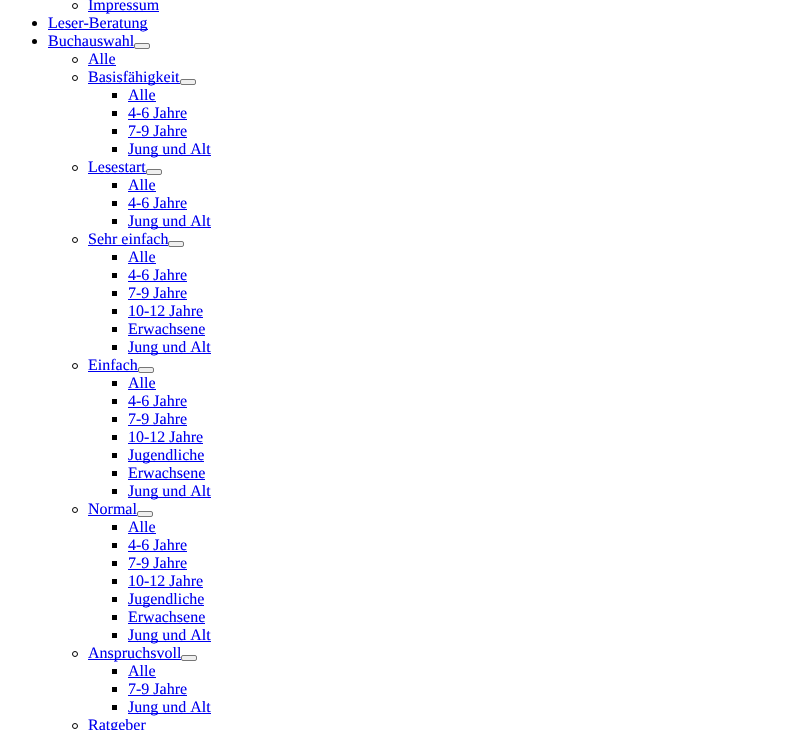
void draw(SkCanvas* canvas) {
	SkPaint paint;
	paint.setAntiAlias(true);
	canvas->clear(0xffffffff);
	paint.setStroke(true);
	paint.setStrokeWidth(1);
	paint.setColor(0xff000000);
	canvas->drawCircle(75, 6, 2.5, paint);
	paint.setStroke(false);
	paint.setColor(0xff0000ee);
	canvas->drawRect(SkRect::MakeXYWH(88, 11, 71, 1), paint);
	SkFont f1(fontMgr->matchFamilyStyle("Liberation Serif", SkFontStyle::Normal()), 16);
	f1.setSubpixel(true);
	canvas->drawString("Impressum", 88, 10, f1, paint);
	paint.setColor(0xff000000);
	canvas->drawCircle(34.5, 23.5, 2.5, paint);
	paint.setColor(0xff0000ee);
	canvas->drawRect(SkRect::MakeXYWH(48, 29, 100, 1), paint);
	canvas->drawString("Leser-Beratung", 48, 28, f1, paint);
	paint.setColor(0xff000000);
	canvas->drawCircle(34.5, 41.5, 2.5, paint);
	paint.setColor(0xff0000ee);
	canvas->drawString("Buchauswahl", 48, 46, f1, paint);
	canvas->drawRect(SkRect::MakeXYWH(48, 47, 86, 1), paint);
	paint.setColor(0xffefefef);
	canvas->drawRoundRect(SkRect::MakeXYWH(134.5, 43.5, 15, 5), 1.5, 1.5, paint);
	paint.setStroke(true);
	paint.setColor(0xff767676);
	canvas->drawRoundRect(SkRect::MakeXYWH(134.5, 43.5, 15, 5), 1.5, 1.5, paint);
	paint.setColor(0xff000000);
	canvas->drawCircle(75, 60, 2.5, paint);
	paint.setStroke(false);
	paint.setColor(0xff0000ee);
	canvas->drawString("Alle", 88, 64, f1, paint);
	canvas->drawRect(SkRect::MakeXYWH(88, 65, 28, 1), paint);
	paint.setStroke(true);
	paint.setColor(0xff000000);
	canvas->drawCircle(75, 78, 2.5, paint);
	paint.setStroke(false);
	paint.setColor(0xff0000ee);
	canvas->drawRect(SkRect::MakeXYWH(88, 83, 92, 1), paint);
	canvas->drawString("Basisfähigkeit", 88, 82, f1, paint);
	paint.setColor(0xffefefef);
	canvas->drawRoundRect(SkRect::MakeXYWH(180.5, 79.5, 15, 5), 1.5, 1.5, paint);
	paint.setStroke(true);
	paint.setColor(0xff767676);
	canvas->drawRoundRect(SkRect::MakeXYWH(180.5, 79.5, 15, 5), 1.5, 1.5, paint);
	paint.setStroke(false);
	paint.setColor(0xff000000);
	canvas->drawRect(SkRect::MakeXYWH(112, 93, 5, 5), paint);
	paint.setColor(0xff0000ee);
	canvas->drawString("Alle", 128, 100, f1, paint);
	canvas->drawRect(SkRect::MakeXYWH(128, 101, 28, 1), paint);
	paint.setColor(0xff000000);
	canvas->drawRect(SkRect::MakeXYWH(112, 111, 5, 5), paint);
	paint.setColor(0xff0000ee);
	canvas->drawString("4-6 Jahre", 128, 118, f1, paint);
	canvas->drawRect(SkRect::MakeXYWH(128, 119, 59, 1), paint);
	paint.setColor(0xff000000);
	canvas->drawRect(SkRect::MakeXYWH(112, 129, 5, 5), paint);
	paint.setColor(0xff0000ee);
	canvas->drawString("7-9 Jahre", 128, 136, f1, paint);
	canvas->drawRect(SkRect::MakeXYWH(128, 137, 59, 1), paint);
	paint.setColor(0xff000000);
	canvas->drawRect(SkRect::MakeXYWH(112, 147, 5, 5), paint);
	paint.setColor(0xff0000ee);
	canvas->drawRect(SkRect::MakeXYWH(128, 155, 83, 1), paint);
	canvas->drawString("Jung und Alt", 128, 154, f1, paint);
	paint.setStroke(true);
	paint.setColor(0xff000000);
	canvas->drawCircle(75, 168, 2.5, paint);
	paint.setStroke(false);
	paint.setColor(0xff0000ee);
	canvas->drawString("Lesestart", 88, 172, f1, paint);
	canvas->drawRect(SkRect::MakeXYWH(88, 173, 58, 1), paint);
	paint.setColor(0xffefefef);
	canvas->drawRoundRect(SkRect::MakeXYWH(146.5, 169.5, 15, 5), 1.5, 1.5, paint);
	paint.setStroke(true);
	paint.setColor(0xff767676);
	canvas->drawRoundRect(SkRect::MakeXYWH(146.5, 169.5, 15, 5), 1.5, 1.5, paint);
	paint.setStroke(false);
	paint.setColor(0xff000000);
	canvas->drawRect(SkRect::MakeXYWH(112, 183, 5, 5), paint);
	paint.setColor(0xff0000ee);
	canvas->drawString("Alle", 128, 190, f1, paint);
	canvas->drawRect(SkRect::MakeXYWH(128, 191, 28, 1), paint);
	paint.setColor(0xff000000);
	canvas->drawRect(SkRect::MakeXYWH(112, 201, 5, 5), paint);
	paint.setColor(0xff0000ee);
	canvas->drawString("4-6 Jahre", 128, 208, f1, paint);
	canvas->drawRect(SkRect::MakeXYWH(128, 209, 59, 1), paint);
	paint.setColor(0xff000000);
	canvas->drawRect(SkRect::MakeXYWH(112, 219, 5, 5), paint);
	paint.setColor(0xff0000ee);
	canvas->drawRect(SkRect::MakeXYWH(128, 227, 83, 1), paint);
	canvas->drawString("Jung und Alt", 128, 226, f1, paint);
	paint.setStroke(true);
	paint.setColor(0xff000000);
	canvas->drawCircle(75, 240, 2.5, paint);
	paint.setStroke(false);
	paint.setColor(0xff0000ee);
	canvas->drawString("Sehr einfach", 88, 244, f1, paint);
	canvas->drawRect(SkRect::MakeXYWH(88, 245, 80, 1), paint);
	paint.setColor(0xffefefef);
	canvas->drawRoundRect(SkRect::MakeXYWH(168.5, 241.5, 15, 5), 1.5, 1.5, paint);
	paint.setStroke(true);
	paint.setColor(0xff767676);
	canvas->drawRoundRect(SkRect::MakeXYWH(168.5, 241.5, 15, 5), 1.5, 1.5, paint);
	paint.setStroke(false);
	paint.setColor(0xff000000);
	canvas->drawRect(SkRect::MakeXYWH(112, 255, 5, 5), paint);
	paint.setColor(0xff0000ee);
	canvas->drawString("Alle", 128, 262, f1, paint);
	canvas->drawRect(SkRect::MakeXYWH(128, 263, 28, 1), paint);
	paint.setColor(0xff000000);
	canvas->drawRect(SkRect::MakeXYWH(112, 273, 5, 5), paint);
	paint.setColor(0xff0000ee);
	canvas->drawString("4-6 Jahre", 128, 280, f1, paint);
	canvas->drawRect(SkRect::MakeXYWH(128, 281, 59, 1), paint);
	paint.setColor(0xff000000);
	canvas->drawRect(SkRect::MakeXYWH(112, 291, 5, 5), paint);
	paint.setColor(0xff0000ee);
	canvas->drawString("7-9 Jahre", 128, 298, f1, paint);
	canvas->drawRect(SkRect::MakeXYWH(128, 299, 59, 1), paint);
	paint.setColor(0xff000000);
	canvas->drawRect(SkRect::MakeXYWH(112, 309, 5, 5), paint);
	paint.setColor(0xff0000ee);
	canvas->drawString("10-12 Jahre", 128, 316, f1, paint);
	canvas->drawRect(SkRect::MakeXYWH(128, 317, 75, 1), paint);
	paint.setColor(0xff000000);
	canvas->drawRect(SkRect::MakeXYWH(112, 327, 5, 5), paint);
	paint.setColor(0xff0000ee);
	canvas->drawString("Erwachsene", 128, 334, f1, paint);
	canvas->drawRect(SkRect::MakeXYWH(128, 335, 77, 1), paint);
	paint.setColor(0xff000000);
	canvas->drawRect(SkRect::MakeXYWH(112, 345, 5, 5), paint);
	paint.setColor(0xff0000ee);
	canvas->drawRect(SkRect::MakeXYWH(128, 353, 83, 1), paint);
	canvas->drawString("Jung und Alt", 128, 352, f1, paint);
	paint.setStroke(true);
	paint.setColor(0xff000000);
	canvas->drawCircle(75, 366, 2.5, paint);
	paint.setStroke(false);
	paint.setColor(0xff0000ee);
	canvas->drawString("Einfach", 88, 370, f1, paint);
	canvas->drawRect(SkRect::MakeXYWH(88, 371, 50, 1), paint);
	paint.setColor(0xffefefef);
	canvas->drawRoundRect(SkRect::MakeXYWH(138.5, 367.5, 15, 5), 1.5, 1.5, paint);
	paint.setStroke(true);
	paint.setColor(0xff767676);
	canvas->drawRoundRect(SkRect::MakeXYWH(138.5, 367.5, 15, 5), 1.5, 1.5, paint);
	paint.setStroke(false);
	paint.setColor(0xff000000);
	canvas->drawRect(SkRect::MakeXYWH(112, 381, 5, 5), paint);
	paint.setColor(0xff0000ee);
	canvas->drawString("Alle", 128, 388, f1, paint);
	canvas->drawRect(SkRect::MakeXYWH(128, 389, 28, 1), paint);
	paint.setColor(0xff000000);
	canvas->drawRect(SkRect::MakeXYWH(112, 399, 5, 5), paint);
	paint.setColor(0xff0000ee);
	canvas->drawString("4-6 Jahre", 128, 406, f1, paint);
	canvas->drawRect(SkRect::MakeXYWH(128, 407, 59, 1), paint);
	paint.setColor(0xff000000);
	canvas->drawRect(SkRect::MakeXYWH(112, 417, 5, 5), paint);
	paint.setColor(0xff0000ee);
	canvas->drawString("7-9 Jahre", 128, 424, f1, paint);
	canvas->drawRect(SkRect::MakeXYWH(128, 425, 59, 1), paint);
	paint.setColor(0xff000000);
	canvas->drawRect(SkRect::MakeXYWH(112, 435, 5, 5), paint);
	paint.setColor(0xff0000ee);
	canvas->drawString("10-12 Jahre", 128, 442, f1, paint);
	canvas->drawRect(SkRect::MakeXYWH(128, 443, 75, 1), paint);
	paint.setColor(0xff000000);
	canvas->drawRect(SkRect::MakeXYWH(112, 453, 5, 5), paint);
	paint.setColor(0xff0000ee);
	canvas->drawRect(SkRect::MakeXYWH(128, 461, 76, 1), paint);
	canvas->drawString("Jugendliche", 128, 460, f1, paint);
	paint.setColor(0xff000000);
	canvas->drawRect(SkRect::MakeXYWH(112, 471, 5, 5), paint);
	paint.setColor(0xff0000ee);
	canvas->drawString("Erwachsene", 128, 478, f1, paint);
	canvas->drawRect(SkRect::MakeXYWH(128, 479, 77, 1), paint);
	paint.setColor(0xff000000);
	canvas->drawRect(SkRect::MakeXYWH(112, 489, 5, 5), paint);
	paint.setColor(0xff0000ee);
	canvas->drawRect(SkRect::MakeXYWH(128, 497, 83, 1), paint);
	canvas->drawString("Jung und Alt", 128, 496, f1, paint);
	paint.setStroke(true);
	paint.setColor(0xff000000);
	canvas->drawCircle(75, 510, 2.5, paint);
	paint.setStroke(false);
	paint.setColor(0xff0000ee);
	canvas->drawString("Normal", 88, 514, f1, paint);
	canvas->drawRect(SkRect::MakeXYWH(88, 515, 49, 1), paint);
	paint.setColor(0xffefefef);
	canvas->drawRoundRect(SkRect::MakeXYWH(137.5, 511.5, 15, 5), 1.5, 1.5, paint);
	paint.setStroke(true);
	paint.setColor(0xff767676);
	canvas->drawRoundRect(SkRect::MakeXYWH(137.5, 511.5, 15, 5), 1.5, 1.5, paint);
	paint.setStroke(false);
	paint.setColor(0xff000000);
	canvas->drawRect(SkRect::MakeXYWH(112, 525, 5, 5), paint);
	paint.setColor(0xff0000ee);
	canvas->drawString("Alle", 128, 532, f1, paint);
	canvas->drawRect(SkRect::MakeXYWH(128, 533, 28, 1), paint);
	paint.setColor(0xff000000);
	canvas->drawRect(SkRect::MakeXYWH(112, 543, 5, 5), paint);
	paint.setColor(0xff0000ee);
	canvas->drawString("4-6 Jahre", 128, 550, f1, paint);
	canvas->drawRect(SkRect::MakeXYWH(128, 551, 59, 1), paint);
	paint.setColor(0xff000000);
	canvas->drawRect(SkRect::MakeXYWH(112, 561, 5, 5), paint);
	paint.setColor(0xff0000ee);
	canvas->drawString("7-9 Jahre", 128, 568, f1, paint);
	canvas->drawRect(SkRect::MakeXYWH(128, 569, 59, 1), paint);
	paint.setColor(0xff000000);
	canvas->drawRect(SkRect::MakeXYWH(112, 579, 5, 5), paint);
	paint.setColor(0xff0000ee);
	canvas->drawString("10-12 Jahre", 128, 586, f1, paint);
	canvas->drawRect(SkRect::MakeXYWH(128, 587, 75, 1), paint);
	paint.setColor(0xff000000);
	canvas->drawRect(SkRect::MakeXYWH(112, 597, 5, 5), paint);
	paint.setColor(0xff0000ee);
	canvas->drawRect(SkRect::MakeXYWH(128, 605, 76, 1), paint);
	canvas->drawString("Jugendliche", 128, 604, f1, paint);
	paint.setColor(0xff000000);
	canvas->drawRect(SkRect::MakeXYWH(112, 615, 5, 5), paint);
	paint.setColor(0xff0000ee);
	canvas->drawString("Erwachsene", 128, 622, f1, paint);
	canvas->drawRect(SkRect::MakeXYWH(128, 623, 77, 1), paint);
	paint.setColor(0xff000000);
	canvas->drawRect(SkRect::MakeXYWH(112, 633, 5, 5), paint);
	paint.setColor(0xff0000ee);
	canvas->drawRect(SkRect::MakeXYWH(128, 641, 83, 1), paint);
	canvas->drawString("Jung und Alt", 128, 640, f1, paint);
	paint.setStroke(true);
	paint.setColor(0xff000000);
	canvas->drawCircle(75, 654, 2.5, paint);
	paint.setStroke(false);
	paint.setColor(0xff0000ee);
	canvas->drawRect(SkRect::MakeXYWH(88, 659, 93, 1), paint);
	canvas->drawString("Anspruchsvoll", 88, 658, f1, paint);
	paint.setColor(0xffefefef);
	canvas->drawRoundRect(SkRect::MakeXYWH(181.5, 655.5, 15, 5), 1.5, 1.5, paint);
	paint.setStroke(true);
	paint.setColor(0xff767676);
	canvas->drawRoundRect(SkRect::MakeXYWH(181.5, 655.5, 15, 5), 1.5, 1.5, paint);
	paint.setStroke(false);
	paint.setColor(0xff000000);
	canvas->drawRect(SkRect::MakeXYWH(112, 669, 5, 5), paint);
	paint.setColor(0xff0000ee);
	canvas->drawString("Alle", 128, 676, f1, paint);
	canvas->drawRect(SkRect::MakeXYWH(128, 677, 28, 1), paint);
	paint.setColor(0xff000000);
	canvas->drawRect(SkRect::MakeXYWH(112, 687, 5, 5), paint);
	paint.setColor(0xff0000ee);
	canvas->drawString("7-9 Jahre", 128, 694, f1, paint);
	canvas->drawRect(SkRect::MakeXYWH(128, 695, 59, 1), paint);
	paint.setColor(0xff000000);
	canvas->drawRect(SkRect::MakeXYWH(112, 705, 5, 5), paint);
	paint.setColor(0xff0000ee);
	canvas->drawRect(SkRect::MakeXYWH(128, 713, 83, 1), paint);
	canvas->drawString("Jung und Alt", 128, 712, f1, paint);
	paint.setStroke(true);
	paint.setColor(0xff000000);
	canvas->drawCircle(75, 726, 2.5, paint);
	paint.setStroke(false);
	paint.setColor(0xff0000ee);
	canvas->drawString("Ratgeber", 88, 730, f1, paint);
}
